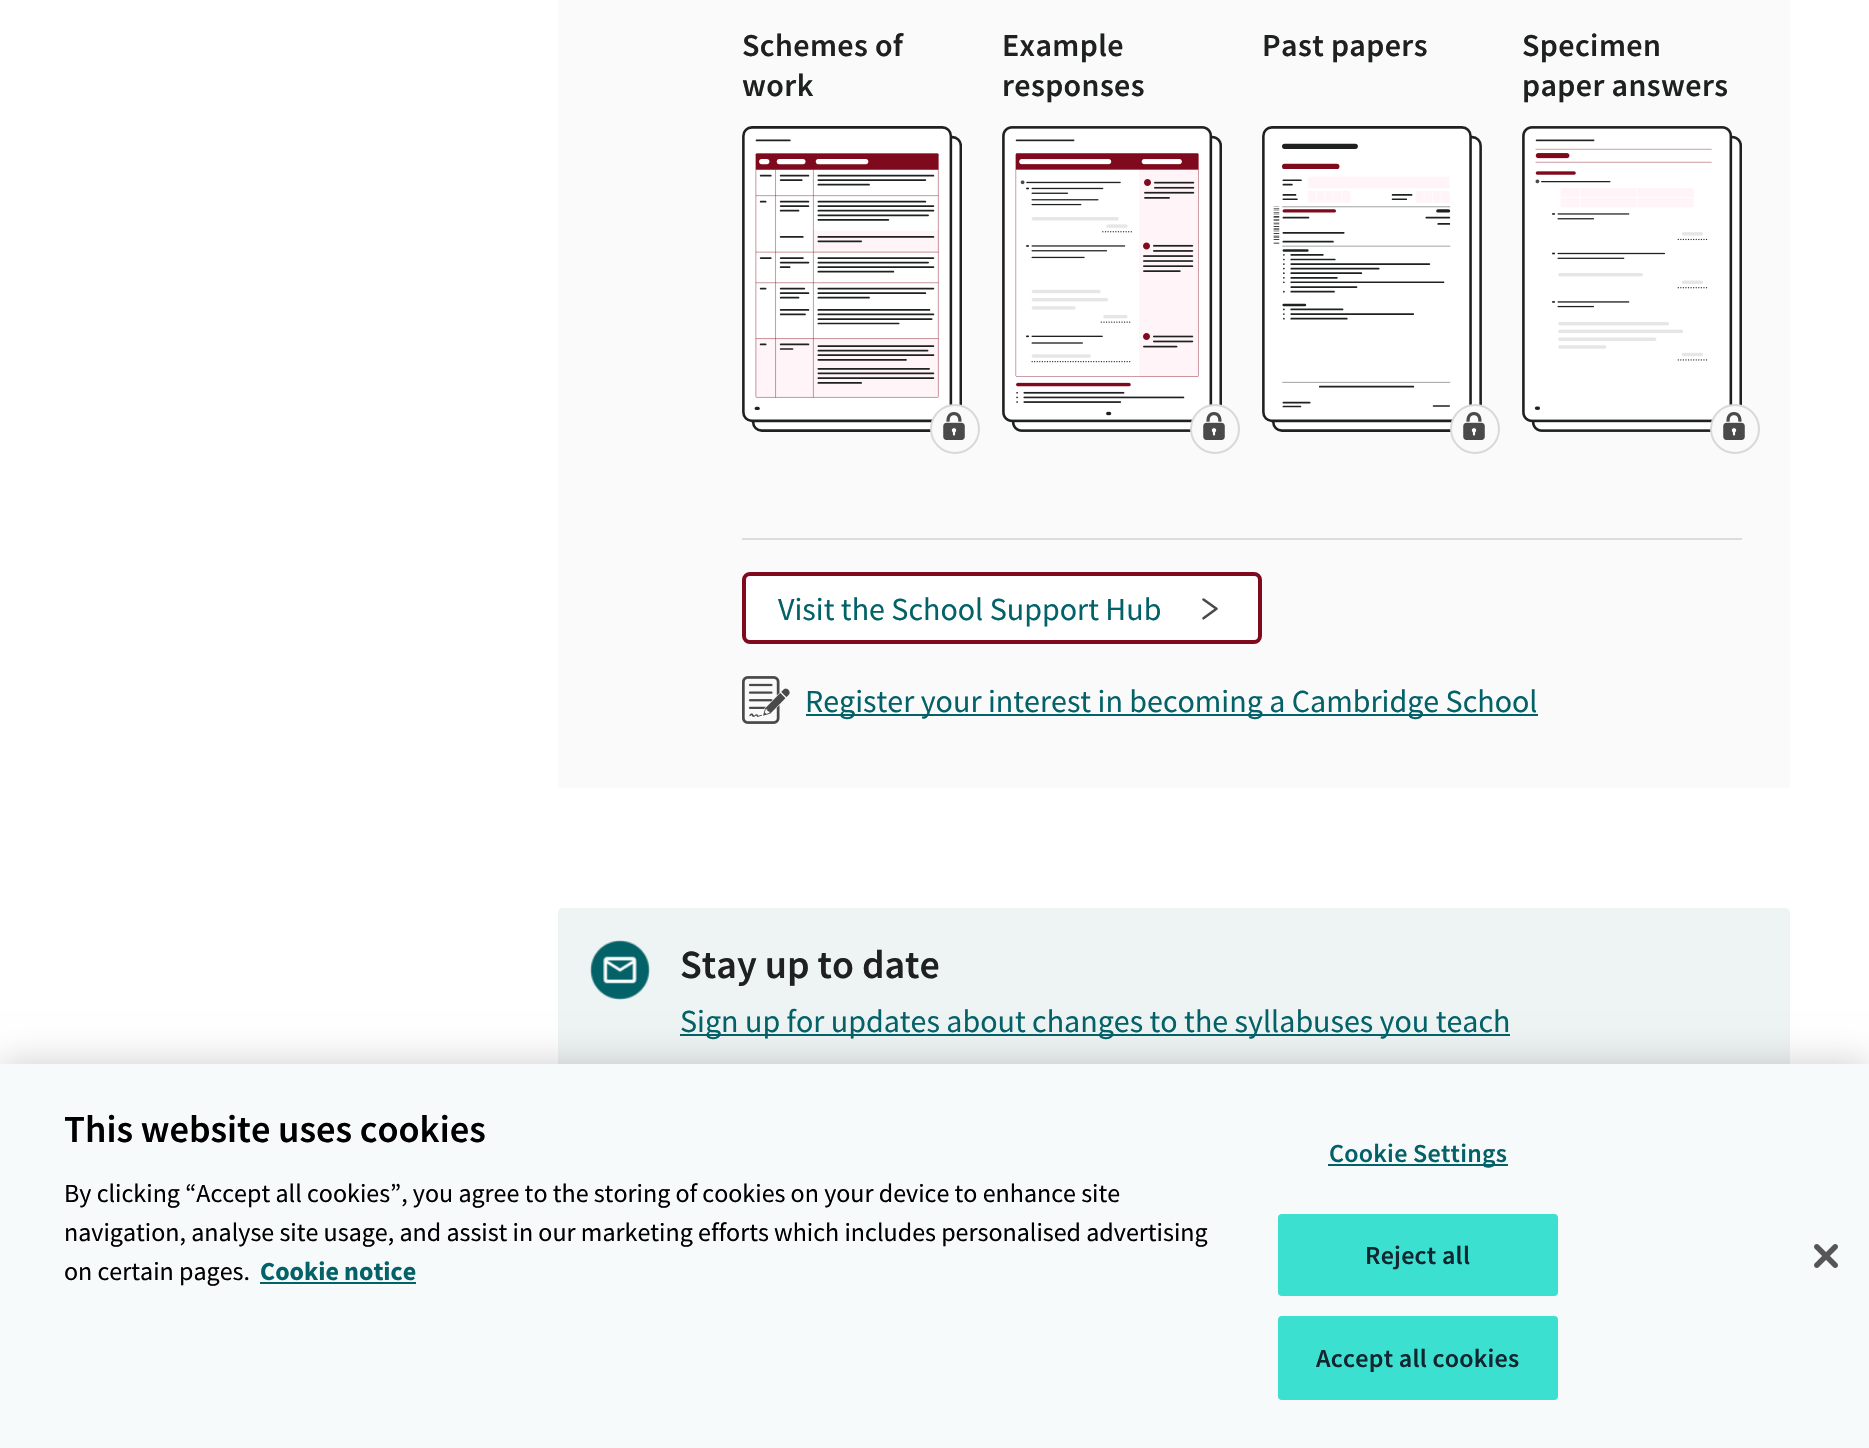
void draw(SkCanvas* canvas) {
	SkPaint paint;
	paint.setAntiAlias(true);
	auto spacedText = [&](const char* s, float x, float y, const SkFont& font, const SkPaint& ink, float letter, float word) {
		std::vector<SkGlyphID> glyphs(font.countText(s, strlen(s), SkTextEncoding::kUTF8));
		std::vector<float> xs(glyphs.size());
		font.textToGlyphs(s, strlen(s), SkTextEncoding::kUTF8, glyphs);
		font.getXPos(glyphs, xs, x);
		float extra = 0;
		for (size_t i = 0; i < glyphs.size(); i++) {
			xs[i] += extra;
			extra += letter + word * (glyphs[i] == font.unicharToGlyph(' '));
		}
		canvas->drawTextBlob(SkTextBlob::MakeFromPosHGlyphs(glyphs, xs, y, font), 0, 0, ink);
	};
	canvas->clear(0xffffffff);
	paint.setColor(0xfffafafa);
	canvas->drawRect(SkRect::MakeXYWH(558, 0, 1232, 788), paint);
	paint.setColor(0xffdcdcdc);
	canvas->drawRect(SkRect::MakeXYWH(742, 538, 1000, 2), paint);
	SkFont f1(fontMgr->matchFamilyStyle("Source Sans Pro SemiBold", SkFontStyle(600, SkFontStyle::kNormal_Width, SkFontStyle::kUpright_Slant)), 32);
	f1.setSubpixel(true);
	paint.setColor(0xff1f2121);
	spacedText("Schemes of", 742, 56, f1, paint, 0.4, 0);
	spacedText("work", 742, 96, f1, paint, 0.4, 0);
	canvas->drawImageRect(SkImages::DeferredFromEncodedData(SkData::MakeFromFileName("img1.png")), SkRect::MakeXYWH(742, 126, 220, 306), SkSamplingOptions());
	paint.setColor(0xfffafafa);
	canvas->drawCircle(955, 429, 24, paint);
	paint.setStroke(true);
	paint.setStrokeWidth(2);
	paint.setColor(0xffd9d9d9);
	canvas->drawCircle(955, 429, 24, paint);
	canvas->drawImageRect(SkImages::DeferredFromEncodedData(SkData::MakeFromFileName("img2.png")), SkRect::MakeXYWH(943, 412, 22, 28), SkSamplingOptions());
	paint.setStroke(false);
	paint.setColor(0xff1f2121);
	spacedText("Example", 1002, 56, f1, paint, 0.4, 0);
	spacedText("responses", 1002, 96, f1, paint, 0.4, 0);
	canvas->drawImageRect(SkImages::DeferredFromEncodedData(SkData::MakeFromFileName("img3.png")), SkRect::MakeXYWH(1002, 126, 220, 306), SkSamplingOptions());
	paint.setColor(0xfffafafa);
	canvas->drawCircle(1215, 429, 24, paint);
	paint.setStroke(true);
	paint.setColor(0xffd9d9d9);
	canvas->drawCircle(1215, 429, 24, paint);
	canvas->drawImageRect(SkImages::DeferredFromEncodedData(SkData::MakeFromFileName("img2.png")), SkRect::MakeXYWH(1203, 412, 22, 28), SkSamplingOptions());
	paint.setStroke(false);
	paint.setColor(0xff1f2121);
	spacedText("Past papers", 1262, 56, f1, paint, 0.4, 0);
	canvas->drawImageRect(SkImages::DeferredFromEncodedData(SkData::MakeFromFileName("img4.png")), SkRect::MakeXYWH(1262, 126, 220, 306), SkSamplingOptions());
	paint.setColor(0xfffafafa);
	canvas->drawCircle(1475, 429, 24, paint);
	paint.setStroke(true);
	paint.setColor(0xffd9d9d9);
	canvas->drawCircle(1475, 429, 24, paint);
	canvas->drawImageRect(SkImages::DeferredFromEncodedData(SkData::MakeFromFileName("img2.png")), SkRect::MakeXYWH(1463, 412, 22, 28), SkSamplingOptions());
	paint.setStroke(false);
	paint.setColor(0xff1f2121);
	spacedText("Specimen", 1522, 56, f1, paint, 0.4, 0);
	spacedText("paper answers", 1522, 96, f1, paint, 0.4, 0);
	canvas->drawImageRect(SkImages::DeferredFromEncodedData(SkData::MakeFromFileName("img5.png")), SkRect::MakeXYWH(1522, 126, 220, 306), SkSamplingOptions());
	paint.setColor(0xfffafafa);
	canvas->drawCircle(1735, 429, 24, paint);
	paint.setStroke(true);
	paint.setColor(0xffd9d9d9);
	canvas->drawCircle(1735, 429, 24, paint);
	canvas->drawImageRect(SkImages::DeferredFromEncodedData(SkData::MakeFromFileName("img2.png")), SkRect::MakeXYWH(1723, 412, 22, 28), SkSamplingOptions());
	paint.setStroke(false);
	paint.setColor(0xffffffff);
	canvas->drawRoundRect(SkRect::MakeXYWH(742, 572, 520, 72), 8, 8, paint);
	canvas->drawImageRect(SkImages::DeferredFromEncodedData(SkData::MakeFromFileName("img6.png")), SkRect::MakeXYWH(1202, 598, 16, 22), SkSamplingOptions());
	paint.setStroke(true);
	paint.setStrokeWidth(4);
	paint.setColor(0xff7f091d);
	canvas->drawRoundRect(SkRect::MakeXYWH(744, 574, 516, 68), 6, 6, paint);
	SkFont f2(fontMgr->matchFamilyStyle("Source Sans Pro", SkFontStyle::Normal()), 32);
	f2.setSubpixel(true);
	paint.setStroke(false);
	paint.setColor(0xff036268);
	canvas->drawString("Visit the School Support Hub", 778, 620, f2, paint);
	canvas->drawImageRect(SkImages::DeferredFromEncodedData(SkData::MakeFromFileName("img7.png")), SkRect::MakeXYWH(742, 676, 48, 48), SkSamplingOptions());
	canvas->drawRect(SkRect::MakeXYWH(806, 714, 732, 2), paint);
	canvas->drawString("Register your interest in becoming a Cambridge School", 805, 712, f2, paint);
	paint.setColor(0xffeef3f3);
	canvas->drawRoundRect(SkRect::MakeXYWH(558, 908, 1232, 168), 5, 5, paint);
	canvas->drawImageRect(SkImages::DeferredFromEncodedData(SkData::MakeFromFileName("img8.png")), SkRect::MakeXYWH(590, 940, 60, 60), SkSamplingOptions());
	SkFont f3(fontMgr->matchFamilyStyle("Source Sans Pro SemiBold", SkFontStyle(600, SkFontStyle::kNormal_Width, SkFontStyle::kUpright_Slant)), 40);
	f3.setSubpixel(true);
	paint.setColor(0xff1f2121);
	canvas->drawString("Stay up to date", 680, 978, f3, paint);
	paint.setColor(0xff036268);
	canvas->drawRect(SkRect::MakeXYWH(680, 1034, 830, 2), paint);
	canvas->drawString("Sign up for updates about changes to the syllabuses you teach", 680, 1032, f2, paint);
	paint.setColor(0x33000000);
	paint.setMaskFilter(SkMaskFilter::MakeBlur(kNormal_SkBlurStyle, 18));
	canvas->drawRect(SkRect::MakeXYWH(0, 1064, 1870, 384), paint);
	paint.setMaskFilter(nullptr);
	paint.setColor(0xfff7fafa);
	canvas->drawRect(SkRect::MakeXYWH(0, 1064, 1869, 384), paint);
	SkFont f4(fontMgr->matchFamilyStyle("Source Sans Pro SemiBold", SkFontStyle(600, SkFontStyle::kNormal_Width, SkFontStyle::kUpright_Slant)), 38.4);
	f4.setSubpixel(true);
	paint.setColor(0xff000000);
	canvas->drawString("This website uses cookies", 64, 1142, f4, paint);
	SkFont f5(fontMgr->matchFamilyStyle("Source Sans Pro", SkFontStyle::Normal()), 26);
	f5.setSubpixel(true);
	canvas->drawString("By clicking “Accept all cookies”, you agree to the storing of cookies on your device to enhance site", 64, 1202, f5, paint);
	canvas->drawString("navigation, analyse site usage, and assist in our marketing efforts which includes personalised advertising", 64, 1241, f5, paint);
	canvas->drawString("on certain pages.", 64, 1280, f5, paint);
	SkFont f6(fontMgr->matchFamilyStyle("Source Sans Pro", SkFontStyle::Bold()), 26);
	f6.setSubpixel(true);
	paint.setColor(0xff036268);
	canvas->drawString("Cookie notice", 260, 1280, f6, paint);
	canvas->drawRect(SkRect::MakeXYWH(260, 1282, 156, 2), paint);
	canvas->drawRect(SkRect::MakeXYWH(1328, 1164, 180, 2), paint);
	SkFont f7(fontMgr->matchFamilyStyle("Source Sans Pro SemiBold", SkFontStyle(600, SkFontStyle::kNormal_Width, SkFontStyle::kUpright_Slant)), 26);
	f7.setSubpixel(true);
	spacedText("Cookie Settings", 1329, 1162, f7, paint, 0.25, 0);
	paint.setColor(0xff3be0d0);
	canvas->drawRoundRect(SkRect::MakeXYWH(1279, 1215, 278, 80), 3, 3, paint);
	paint.setStroke(true);
	paint.setStrokeWidth(2);
	canvas->drawRoundRect(SkRect::MakeXYWH(1279, 1215, 278, 80), 3, 3, paint);
	paint.setStroke(false);
	paint.setColor(0xff112730);
	spacedText("Reject all", 1365, 1264, f7, paint, 0.25, 0);
	paint.setColor(0xff3be0d0);
	canvas->drawRoundRect(SkRect::MakeXYWH(1279, 1317, 278, 82), 3, 3, paint);
	paint.setStroke(true);
	canvas->drawRoundRect(SkRect::MakeXYWH(1279, 1317, 278, 82), 3, 3, paint);
	paint.setStroke(false);
	paint.setColor(0xff112730);
	spacedText("Accept all cookies", 1316, 1367, f7, paint, 0.25, 0);
	canvas->drawImageRect(SkImages::DeferredFromEncodedData(SkData::MakeFromFileName("img9.png")), SkRect::MakeXYWH(1814, 1244, 24, 24), SkSamplingOptions());
}
